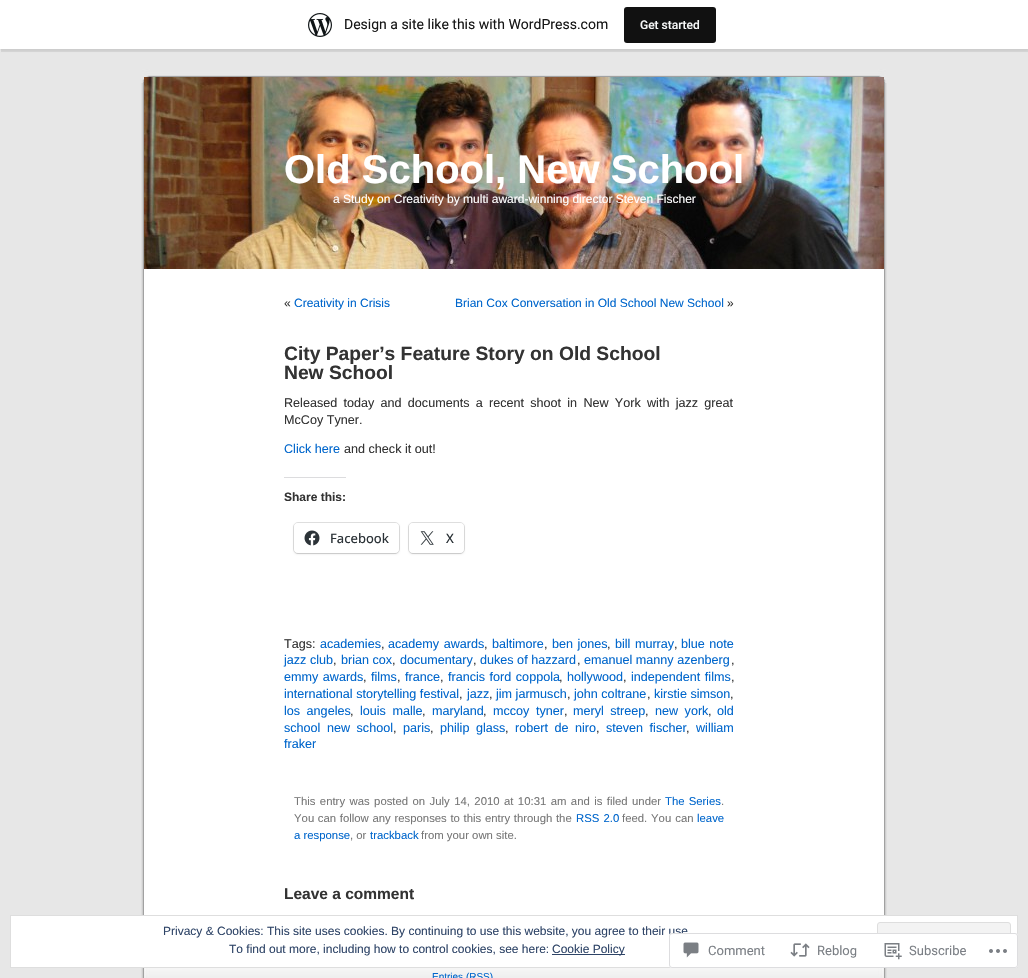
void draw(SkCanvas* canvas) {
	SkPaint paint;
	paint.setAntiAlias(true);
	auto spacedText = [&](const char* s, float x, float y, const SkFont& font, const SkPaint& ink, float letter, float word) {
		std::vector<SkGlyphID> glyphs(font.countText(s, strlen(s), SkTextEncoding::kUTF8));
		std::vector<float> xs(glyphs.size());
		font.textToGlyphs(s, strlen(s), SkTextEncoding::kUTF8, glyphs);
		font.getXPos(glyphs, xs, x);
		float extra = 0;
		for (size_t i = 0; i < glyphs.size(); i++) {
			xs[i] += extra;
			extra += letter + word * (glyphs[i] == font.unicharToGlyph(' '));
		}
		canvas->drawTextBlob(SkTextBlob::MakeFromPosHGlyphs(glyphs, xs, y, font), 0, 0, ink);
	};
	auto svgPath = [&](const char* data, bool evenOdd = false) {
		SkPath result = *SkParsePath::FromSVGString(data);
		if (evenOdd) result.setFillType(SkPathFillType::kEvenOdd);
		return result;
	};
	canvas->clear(0xffe7e7e7);
	paint.setColor(0x0d000000);
	paint.setMaskFilter(SkMaskFilter::MakeBlur(kNormal_SkBlurStyle, 1));
	canvas->drawRect(SkRect::MakeXYWH(0, 1, 1028, 49), paint);
	paint.setMaskFilter(nullptr);
	paint.setColor(0x14000000);
	canvas->drawPath(svgPath("M1 49V52H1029V3H1028V49Z"), paint);
	paint.setColor(0xffffffff);
	canvas->drawRect(SkRect::MakeXYWH(0, 0, 1028, 49), paint);
	canvas->drawImageRect(SkImages::DeferredFromEncodedData(SkData::MakeFromFileName("img1.png")), SkRect::MakeXYWH(308, 13, 24, 24), SkSamplingOptions());
	SkFont f1(fontMgr->matchFamilyStyle("Roboto", SkFontStyle::Normal()), 14);
	f1.setSubpixel(true);
	paint.setColor(0xff171717);
	canvas->drawString("Design a site like this with WordPress.com", 344, 29, f1, paint);
	paint.setColor(0xff111111);
	canvas->drawRoundRect(SkRect::MakeXYWH(624, 7, 92, 36), 3, 3, paint);
	SkFont f2(fontMgr->matchFamilyStyle("Roboto", SkFontStyle(500, SkFontStyle::kNormal_Width, SkFontStyle::kUpright_Slant)), 12);
	f2.setSubpixel(true);
	paint.setColor(0xfff6f7f7);
	canvas->drawString("Get started", 640, 29, f2, paint);
	canvas->drawImageRect(SkImages::DeferredFromEncodedData(SkData::MakeFromFileName("img2.png")), SkRect::MakeXYWH(141, 269, 746, 709), SkSamplingOptions());
	canvas->drawImageRect(SkImages::DeferredFromEncodedData(SkData::MakeFromFileName("img3.png")), SkRect::MakeXYWH(141, 69, 746, 200), SkSamplingOptions());
	canvas->drawImageRect(SkImages::DeferredFromEncodedData(SkData::MakeFromFileName("img4.png")), SkRect::MakeXYWH(144, 77, 740, 192), SkSamplingOptions());
	SkFont f3(fontMgr->matchFamilyStyle("Liberation Sans", SkFontStyle::Bold()), 40);
	f3.setSubpixel(true);
	paint.setColor(0xffffffff);
	canvas->drawString("Old School, New School", 284, 183, f3, paint);
	SkFont f4(fontMgr->matchFamilyStyle("Liberation Sans", SkFontStyle::Normal()), 12);
	f4.setSubpixel(true);
	canvas->drawString("a Study on Creativity by multi award-winning director Steven Fischer", 333, 203, f4, paint);
	paint.setColor(0xff333333);
	canvas->drawString("«", 284, 307, f4, paint);
	paint.setColor(0xff0066cc);
	canvas->drawString("Creativity in Crisis", 294, 307, f4, paint);
	canvas->drawString("Brian Cox Conversation in Old School New School", 455, 307, f4, paint);
	paint.setColor(0xff333333);
	canvas->drawString("»", 727, 307, f4, paint);
	SkFont f5(fontMgr->matchFamilyStyle("Liberation Sans", SkFontStyle::Bold()), 19.25);
	f5.setSubpixel(true);
	canvas->drawString("City Paper’s Feature Story on Old School", 284, 360, f5, paint);
	canvas->drawString("New School", 284, 379, f5, paint);
	SkFont f6(fontMgr->matchFamilyStyle("Liberation Sans", SkFontStyle::Normal()), 12.6);
	f6.setSubpixel(true);
	spacedText("Released today and documents a recent shoot in New York with jazz great", 284, 407, f6, paint, 0, 2.75);
	canvas->drawString("McCoy Tyner.", 284, 424, f6, paint);
	paint.setColor(0xff0066cc);
	canvas->drawString("Click here", 284, 453, f6, paint);
	paint.setColor(0xff333333);
	canvas->drawString("and check it out!", 344, 453, f6, paint);
	paint.setColor(0xffdcdcde);
	canvas->drawRect(SkRect::MakeXYWH(284, 477, 62, 1), paint);
	SkFont f7(fontMgr->matchFamilyStyle("Liberation Sans", SkFontStyle::Bold()), 12);
	f7.setSubpixel(true);
	paint.setColor(0xff333333);
	canvas->drawString("Share this:", 284, 501, f7, paint);
	paint.setStroke(true);
	paint.setStrokeWidth(1);
	paint.setColor(0xffe0e0e0);
	canvas->drawRoundRect(SkRect::MakeXYWH(293.5, 522.5, 106, 31), 4.5, 4.5, paint);
	paint.setStroke(false);
	paint.setColor(0x1f000000);
	paint.setMaskFilter(SkMaskFilter::MakeBlur(kNormal_SkBlurStyle, 1));
	canvas->drawRoundRect(SkRect::MakeXYWH(294, 524, 105, 30), 4, 4, paint);
	paint.setMaskFilter(nullptr);
	paint.setColor(0xffffffff);
	canvas->drawRoundRect(SkRect::MakeXYWH(294, 523, 105, 30), 4, 4, paint);
	canvas->drawImageRect(SkImages::DeferredFromEncodedData(SkData::MakeFromFileName("img5.png")), SkRect::MakeXYWH(304, 530, 16, 16), SkSamplingOptions());
	SkFont f8(fontMgr->matchFamilyStyle("Open Sans", SkFontStyle(500, SkFontStyle::kNormal_Width, SkFontStyle::kUpright_Slant)), 13);
	f8.setSubpixel(true);
	paint.setColor(0xff2c3338);
	canvas->drawString("Facebook", 330, 543, f8, paint);
	paint.setStroke(true);
	paint.setColor(0xffe0e0e0);
	canvas->drawRoundRect(SkRect::MakeXYWH(408.5, 522.5, 56, 31), 4.5, 4.5, paint);
	paint.setStroke(false);
	paint.setColor(0x1f000000);
	paint.setMaskFilter(SkMaskFilter::MakeBlur(kNormal_SkBlurStyle, 1));
	canvas->drawRoundRect(SkRect::MakeXYWH(409, 524, 55, 30), 4, 4, paint);
	paint.setMaskFilter(nullptr);
	paint.setColor(0xffffffff);
	canvas->drawRoundRect(SkRect::MakeXYWH(409, 523, 55, 30), 4, 4, paint);
	canvas->drawImageRect(SkImages::DeferredFromEncodedData(SkData::MakeFromFileName("img6.png")), SkRect::MakeXYWH(420, 531, 14, 14), SkSamplingOptions());
	paint.setColor(0xff2c3338);
	canvas->drawString("X", 446, 543, f8, paint);
	paint.setColor(0xff333333);
	canvas->drawString("Tags:", 284, 648, f6, paint);
	paint.setColor(0xff0066cc);
	canvas->drawString("academies", 320, 648, f6, paint);
	paint.setColor(0xff333333);
	canvas->drawString(",", 381, 648, f6, paint);
	paint.setColor(0xff0066cc);
	spacedText("academy awards", 388, 648, f6, paint, 0, 1);
	paint.setColor(0xff333333);
	canvas->drawString(",", 484, 648, f6, paint);
	paint.setColor(0xff0066cc);
	canvas->drawString("baltimore", 492, 648, f6, paint);
	paint.setColor(0xff333333);
	canvas->drawString(",", 544, 648, f6, paint);
	paint.setColor(0xff0066cc);
	spacedText("ben jones", 552, 648, f6, paint, 0, 1);
	paint.setColor(0xff333333);
	canvas->drawString(",", 607, 648, f6, paint);
	paint.setColor(0xff0066cc);
	spacedText("bill murray", 615, 648, f6, paint, 0, 1);
	paint.setColor(0xff333333);
	canvas->drawString(",", 674, 648, f6, paint);
	paint.setColor(0xff0066cc);
	spacedText("blue note", 681, 648, f6, paint, 0, 1);
	canvas->drawString("jazz club", 284, 664, f6, paint);
	paint.setColor(0xff333333);
	canvas->drawString(",", 333, 664, f6, paint);
	paint.setColor(0xff0066cc);
	canvas->drawString("brian cox", 341, 664, f6, paint);
	paint.setColor(0xff333333);
	canvas->drawString(",", 392, 664, f6, paint);
	paint.setColor(0xff0066cc);
	canvas->drawString("documentary", 400, 664, f6, paint);
	paint.setColor(0xff333333);
	canvas->drawString(",", 473, 664, f6, paint);
	paint.setColor(0xff0066cc);
	canvas->drawString("dukes of hazzard", 480, 664, f6, paint);
	paint.setColor(0xff333333);
	canvas->drawString(",", 577, 664, f6, paint);
	paint.setColor(0xff0066cc);
	canvas->drawString("emanuel manny azenberg", 584, 664, f6, paint);
	paint.setColor(0xff333333);
	canvas->drawString(",", 731, 664, f6, paint);
	paint.setColor(0xff0066cc);
	spacedText("emmy awards", 284, 681, f6, paint, 0, 1);
	paint.setColor(0xff333333);
	canvas->drawString(",", 363, 681, f6, paint);
	paint.setColor(0xff0066cc);
	canvas->drawString("films", 371, 681, f6, paint);
	paint.setColor(0xff333333);
	canvas->drawString(",", 397, 681, f6, paint);
	paint.setColor(0xff0066cc);
	canvas->drawString("france", 405, 681, f6, paint);
	paint.setColor(0xff333333);
	canvas->drawString(",", 440, 681, f6, paint);
	paint.setColor(0xff0066cc);
	spacedText("francis ford coppola", 448, 681, f6, paint, 0, 1);
	paint.setColor(0xff333333);
	canvas->drawString(",", 559, 681, f6, paint);
	paint.setColor(0xff0066cc);
	canvas->drawString("hollywood", 567, 681, f6, paint);
	paint.setColor(0xff333333);
	canvas->drawString(",", 623, 681, f6, paint);
	paint.setColor(0xff0066cc);
	spacedText("independent films", 631, 681, f6, paint, 0, 1);
	paint.setColor(0xff333333);
	canvas->drawString(",", 731, 681, f6, paint);
	paint.setColor(0xff0066cc);
	canvas->drawString("international storytelling festival", 284, 698, f6, paint);
	paint.setColor(0xff333333);
	canvas->drawString(",", 459, 698, f6, paint);
	paint.setColor(0xff0066cc);
	canvas->drawString("jazz", 467, 698, f6, paint);
	paint.setColor(0xff333333);
	canvas->drawString(",", 489, 698, f6, paint);
	paint.setColor(0xff0066cc);
	canvas->drawString("jim jarmusch", 496, 698, f6, paint);
	paint.setColor(0xff333333);
	canvas->drawString(",", 567, 698, f6, paint);
	paint.setColor(0xff0066cc);
	canvas->drawString("john coltrane", 574, 698, f6, paint);
	paint.setColor(0xff333333);
	canvas->drawString(",", 647, 698, f6, paint);
	paint.setColor(0xff0066cc);
	canvas->drawString("kirstie simson", 654, 698, f6, paint);
	paint.setColor(0xff333333);
	canvas->drawString(",", 730, 698, f6, paint);
	paint.setColor(0xff0066cc);
	spacedText("los angeles", 284, 715, f6, paint, 0, 3);
	paint.setColor(0xff333333);
	canvas->drawString(",", 350, 715, f6, paint);
	paint.setColor(0xff0066cc);
	spacedText("louis malle", 360, 715, f6, paint, 0, 3);
	paint.setColor(0xff333333);
	canvas->drawString(",", 422, 715, f6, paint);
	paint.setColor(0xff0066cc);
	canvas->drawString("maryland", 432, 715, f6, paint);
	paint.setColor(0xff333333);
	canvas->drawString(",", 483, 715, f6, paint);
	paint.setColor(0xff0066cc);
	spacedText("mccoy tyner", 493, 715, f6, paint, 0, 3);
	paint.setColor(0xff333333);
	canvas->drawString(",", 564, 715, f6, paint);
	paint.setColor(0xff0066cc);
	spacedText("meryl streep", 573, 715, f6, paint, 0, 3);
	paint.setColor(0xff333333);
	canvas->drawString(",", 645, 715, f6, paint);
	paint.setColor(0xff0066cc);
	spacedText("new york", 655, 715, f6, paint, 0, 3);
	paint.setColor(0xff333333);
	canvas->drawString(",", 708, 715, f6, paint);
	paint.setColor(0xff0066cc);
	canvas->drawString("old", 717, 715, f6, paint);
	spacedText("school new school", 284, 732, f6, paint, 0, 3);
	paint.setColor(0xff333333);
	canvas->drawString(",", 393, 732, f6, paint);
	paint.setColor(0xff0066cc);
	canvas->drawString("paris", 403, 732, f6, paint);
	paint.setColor(0xff333333);
	canvas->drawString(",", 430, 732, f6, paint);
	paint.setColor(0xff0066cc);
	spacedText("philip glass", 440, 732, f6, paint, 0, 3);
	paint.setColor(0xff333333);
	canvas->drawString(",", 505, 732, f6, paint);
	paint.setColor(0xff0066cc);
	spacedText("robert de niro", 515, 732, f6, paint, 0, 3);
	paint.setColor(0xff333333);
	canvas->drawString(",", 596, 732, f6, paint);
	paint.setColor(0xff0066cc);
	spacedText("steven fischer", 606, 732, f6, paint, 0, 3);
	paint.setColor(0xff333333);
	canvas->drawString(",", 686, 732, f6, paint);
	paint.setColor(0xff0066cc);
	canvas->drawString("william", 696, 732, f6, paint);
	canvas->drawString("fraker", 284, 748, f6, paint);
	SkFont f9(fontMgr->matchFamilyStyle("Liberation Sans", SkFontStyle::Normal()), 11.35);
	f9.setSubpixel(true);
	paint.setColor(0xff777777);
	spacedText("This entry was posted on July 14, 2010 at 10:31 am and is filed under", 294, 805, f9, paint, 0, 1.25);
	paint.setColor(0xff0066cc);
	spacedText("The Series", 665, 805, f9, paint, 0, 1);
	paint.setColor(0xff777777);
	canvas->drawString(".", 721, 805, f9, paint);
	spacedText("You can follow any responses to this entry through the", 294, 822, f9, paint, 0, 0.5);
	paint.setColor(0xff0066cc);
	spacedText("RSS 2.0", 576, 822, f9, paint, 0, 1);
	paint.setColor(0xff777777);
	canvas->drawString("feed.", 622, 822, f9, paint);
	spacedText("You can", 651, 822, f9, paint, 0, 1);
	paint.setColor(0xff0066cc);
	canvas->drawString("leave", 697, 822, f9, paint);
	canvas->drawString("a response", 294, 839, f9, paint);
	paint.setColor(0xff777777);
	canvas->drawString(", or", 350, 839, f9, paint);
	paint.setColor(0xff0066cc);
	canvas->drawString("trackback", 370, 839, f9, paint);
	paint.setColor(0xff777777);
	canvas->drawString("from your own site.", 421, 839, f9, paint);
	SkFont f10(fontMgr->matchFamilyStyle("Liberation Sans", SkFontStyle::Bold()), 15.5);
	f10.setSubpixel(true);
	paint.setColor(0xff333333);
	canvas->drawString("Leave a comment", 284, 899, f10, paint);
	canvas->drawImageRect(SkImages::DeferredFromEncodedData(SkData::MakeFromFileName("img7.png")), SkRect::MakeXYWH(144, 968, 740, 10), SkSamplingOptions());
	SkFont f11(fontMgr->matchFamilyStyle("Liberation Sans", SkFontStyle::Normal()), 10);
	f11.setSubpixel(true);
	paint.setColor(0xff0066cc);
	canvas->drawString("Entries (RSS)", 432, 980, f11, paint);
	paint.setColor(0xffffffff);
	canvas->drawRect(SkRect::MakeXYWH(10.5, 915.5, 1007, 52), paint);
	paint.setStroke(true);
	paint.setColor(0xffdedede);
	canvas->drawRect(SkRect::MakeXYWH(10.5, 915.5, 1007, 52), paint);
	paint.setStroke(false);
	paint.setColor(0xff2e4467);
	canvas->drawString("Privacy & Cookies: This site uses cookies. By continuing to use this website, you agree to their use", 163, 935, f4, paint);
	paint.setColor(0xfff3f3f3);
	canvas->drawRoundRect(SkRect::MakeXYWH(877.5, 922.5, 133, 38), 2.5, 2.5, paint);
	paint.setStroke(true);
	paint.setColor(0xffdedede);
	canvas->drawRoundRect(SkRect::MakeXYWH(877.5, 922.5, 133, 38), 2.5, 2.5, paint);
	paint.setStroke(false);
	paint.setColor(0xff2e4467);
	canvas->drawString("To find out more, including how to control cookies, see here:", 229, 953, f4, paint);
	canvas->drawRect(SkRect::MakeXYWH(552, 954, 73, 1), paint);
	canvas->drawString("Cookie Policy", 552, 953, f4, paint);
	paint.setColor(0xfaffffff);
	canvas->drawRoundRect(SkRect::MakeXYWH(669, 933, 349, 35), 3, 3, paint);
	paint.setStroke(true);
	paint.setColor(0xfadcdcde);
	canvas->drawRoundRect(SkRect::MakeXYWH(669.5, 933.5, 348, 34), 2.5, 2.5, paint);
	canvas->drawImageRect(SkImages::DeferredFromEncodedData(SkData::MakeFromFileName("img8.png")), SkRect::MakeXYWH(683, 942, 16, 16), SkSamplingOptions());
	SkFont f12(fontMgr->matchFamilyStyle("Roboto", SkFontStyle::Normal()), 13);
	f12.setSubpixel(true);
	paint.setStroke(false);
	paint.setColor(0xff7b7f85);
	canvas->drawString("Comment", 708, 955, f12, paint);
	canvas->drawImageRect(SkImages::DeferredFromEncodedData(SkData::MakeFromFileName("img9.png")), SkRect::MakeXYWH(790, 943, 20, 14), SkSamplingOptions());
	canvas->drawString("Reblog", 817, 955, f12, paint);
	canvas->drawImageRect(SkImages::DeferredFromEncodedData(SkData::MakeFromFileName("img10.png")), SkRect::MakeXYWH(884, 943, 18, 17), SkSamplingOptions());
	canvas->drawString("Subscribe", 909, 955, f12, paint);
	canvas->drawImageRect(SkImages::DeferredFromEncodedData(SkData::MakeFromFileName("img11.png")), SkRect::MakeXYWH(989, 949, 18, 4), SkSamplingOptions());
}
